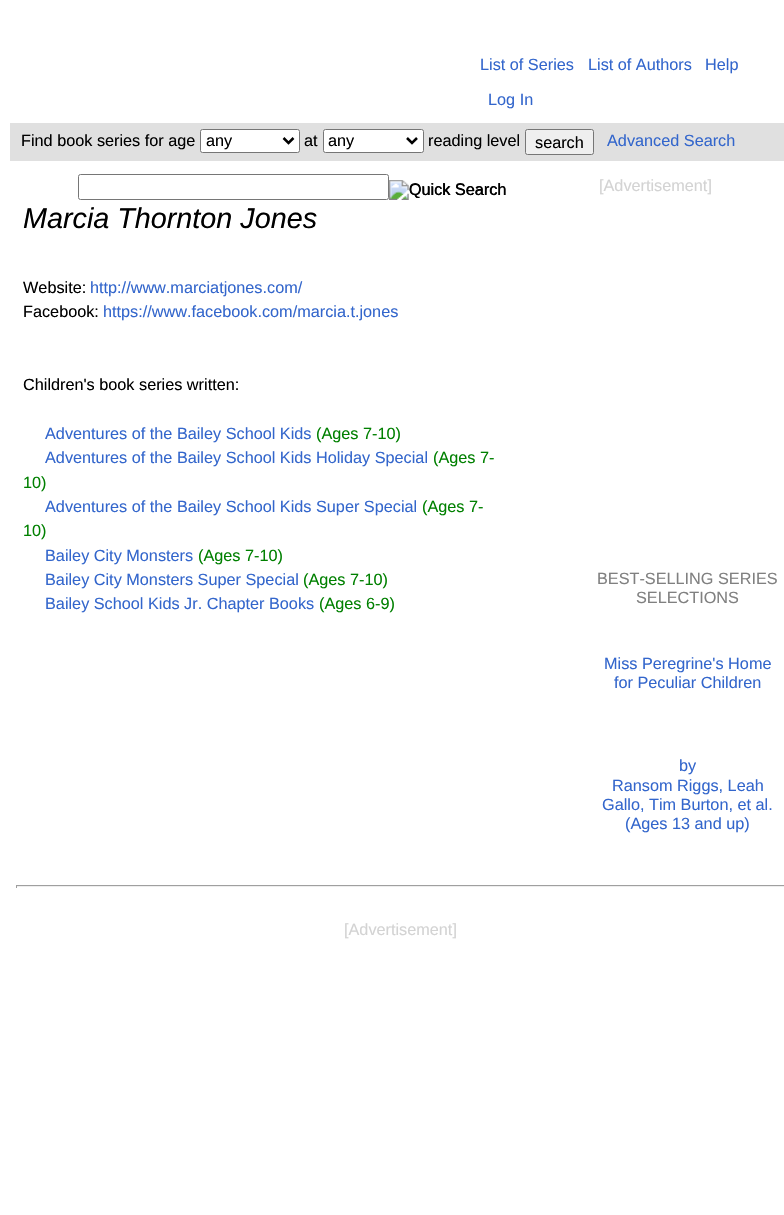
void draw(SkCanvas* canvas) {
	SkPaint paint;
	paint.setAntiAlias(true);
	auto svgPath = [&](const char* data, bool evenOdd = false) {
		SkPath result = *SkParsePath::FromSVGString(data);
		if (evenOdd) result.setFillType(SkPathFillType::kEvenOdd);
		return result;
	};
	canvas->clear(0xffffffff);
	SkFont f1(fontMgr->matchFamilyStyle("Liberation Sans", SkFontStyle::Normal()), 16.25);
	f1.setSubpixel(true);
	paint.setColor(0xff3366cc);
	canvas->drawString("List of Series", 480, 70, f1, paint);
	canvas->drawString("List of Authors", 588, 70, f1, paint);
	canvas->drawString("Help", 705, 70, f1, paint);
	canvas->drawString("Log In", 488, 105, f1, paint);
	paint.setColor(0xffe0e0e0);
	canvas->drawRect(SkRect::MakeXYWH(10, 123, 774, 38), paint);
	paint.setColor(0xff000000);
	canvas->drawString("Find book series for age", 21, 146, f1, paint);
	paint.setColor(0xffffffff);
	canvas->drawRoundRect(SkRect::MakeXYWH(200.5, 129.5, 99, 23), 2, 2, paint);
	paint.setStroke(true);
	paint.setStrokeWidth(1);
	paint.setColor(0xff767676);
	canvas->drawRoundRect(SkRect::MakeXYWH(200.5, 129.5, 99, 23), 2, 2, paint);
	paint.setStrokeWidth(2.5);
	paint.setColor(0xff000000);
	canvas->drawPath(svgPath("M283.5 138L288.5 143L293.5 138"), paint);
	paint.setStroke(false);
	canvas->drawString("any", 206, 146, f1, paint);
	canvas->drawString("at", 304, 146, f1, paint);
	paint.setColor(0xffffffff);
	canvas->drawRoundRect(SkRect::MakeXYWH(323.5, 129.5, 100, 23), 2, 2, paint);
	paint.setStroke(true);
	paint.setStrokeWidth(1);
	paint.setColor(0xff767676);
	canvas->drawRoundRect(SkRect::MakeXYWH(323.5, 129.5, 100, 23), 2, 2, paint);
	paint.setStrokeWidth(2.5);
	paint.setColor(0xff000000);
	canvas->drawPath(svgPath("M407 138L412 143L417 138"), paint);
	paint.setStroke(false);
	canvas->drawString("any", 328, 146, f1, paint);
	canvas->drawString("reading level", 428, 146, f1, paint);
	paint.setColor(0xffefefef);
	canvas->drawRoundRect(SkRect::MakeXYWH(525.5, 129.5, 68, 25), 2, 2, paint);
	paint.setStroke(true);
	paint.setStrokeWidth(1);
	paint.setColor(0xff767676);
	canvas->drawRoundRect(SkRect::MakeXYWH(525.5, 129.5, 68, 25), 2, 2, paint);
	paint.setStroke(false);
	paint.setColor(0xff000000);
	canvas->drawString("search", 535, 148, f1, paint);
	paint.setColor(0xff3366cc);
	canvas->drawString("Advanced Search", 607, 146, f1, paint);
	paint.setStroke(true);
	paint.setColor(0xff767676);
	canvas->drawRoundRect(SkRect::MakeXYWH(78.5, 174.5, 310, 25), 2, 2, paint);
	canvas->drawImageRect(SkImages::DeferredFromEncodedData(SkData::MakeFromFileName("img1.png")), SkRect::MakeXYWH(388, 180, 118, 20), SkSamplingOptions());
	paint.setStroke(false);
	paint.setColor(0xff000000);
	canvas->drawString("Quick Search", 409, 195, f1, paint);
	paint.setColor(0xffd3d3d3);
	canvas->drawString("[Advertisement]", 599, 191, f1, paint);
	SkFont f2(fontMgr->matchFamilyStyle("Liberation Sans", SkFontStyle::Italic()), 28.75);
	f2.setSubpixel(true);
	paint.setColor(0xff000000);
	canvas->drawString("Marcia Thornton Jones", 23, 228, f2, paint);
	canvas->drawString("Website:", 23, 293, f1, paint);
	paint.setColor(0xff3366cc);
	canvas->drawString("http://www.marciatjones.com/", 90, 293, f1, paint);
	paint.setColor(0xff000000);
	canvas->drawString("Facebook:", 23, 317, f1, paint);
	paint.setColor(0xff3366cc);
	canvas->drawString("https://www.facebook.com/marcia.t.jones", 103, 317, f1, paint);
	paint.setColor(0xff000000);
	canvas->drawString("Children's book series written:", 23, 390, f1, paint);
	paint.setColor(0xff3366cc);
	canvas->drawString("Adventures of the Bailey School Kids", 45, 439, f1, paint);
	paint.setColor(0xff008000);
	canvas->drawString("(Ages 7-10)", 316, 439, f1, paint);
	paint.setColor(0xff3366cc);
	canvas->drawString("Adventures of the Bailey School Kids Holiday Special", 45, 463, f1, paint);
	paint.setColor(0xff008000);
	canvas->drawString("(Ages 7-", 433, 463, f1, paint);
	canvas->drawString("10)", 23, 488, f1, paint);
	paint.setColor(0xff3366cc);
	canvas->drawString("Adventures of the Bailey School Kids Super Special", 45, 512, f1, paint);
	paint.setColor(0xff008000);
	canvas->drawString("(Ages 7-", 422, 512, f1, paint);
	canvas->drawString("10)", 23, 536, f1, paint);
	paint.setColor(0xff3366cc);
	canvas->drawString("Bailey City Monsters", 45, 561, f1, paint);
	paint.setColor(0xff008000);
	canvas->drawString("(Ages 7-10)", 198, 561, f1, paint);
	paint.setColor(0xff3366cc);
	canvas->drawString("Bailey City Monsters Super Special", 45, 585, f1, paint);
	paint.setColor(0xff008000);
	canvas->drawString("(Ages 7-10)", 303, 585, f1, paint);
	paint.setColor(0xff3366cc);
	canvas->drawString("Bailey School Kids Jr. Chapter Books", 45, 609, f1, paint);
	paint.setColor(0xff008000);
	canvas->drawString("(Ages 6-9)", 319, 609, f1, paint);
	paint.setColor(0xff808080);
	canvas->drawString("BEST-SELLING SERIES", 597, 584, f1, paint);
	canvas->drawString("SELECTIONS", 636, 603, f1, paint);
	paint.setColor(0xff3366cc);
	canvas->drawString("Miss Peregrine's Home", 604, 669, f1, paint);
	canvas->drawString("for Peculiar Children", 614, 688, f1, paint);
	canvas->drawString("by", 679, 771, f1, paint);
	canvas->drawString("Ransom Riggs, Leah", 612, 791, f1, paint);
	canvas->drawString("Gallo, Tim Burton, et al.", 602, 810, f1, paint);
	canvas->drawString("(Ages 13 and up)", 625, 829, f1, paint);
	paint.setColor(0xff9f9f9f);
	canvas->drawRect(SkRect::MakeXYWH(16, 885, 768, 1), paint);
	paint.setColor(0xffeeeeee);
	canvas->drawRect(SkRect::MakeXYWH(16, 886, 768, 1), paint);
	paint.setColor(0xff9f9f9f);
	canvas->drawRect(SkRect::MakeXYWH(16, 885, 1, 3), paint);
	paint.setColor(0xffd3d3d3);
	canvas->drawString("[Advertisement]", 344, 935, f1, paint);
}
